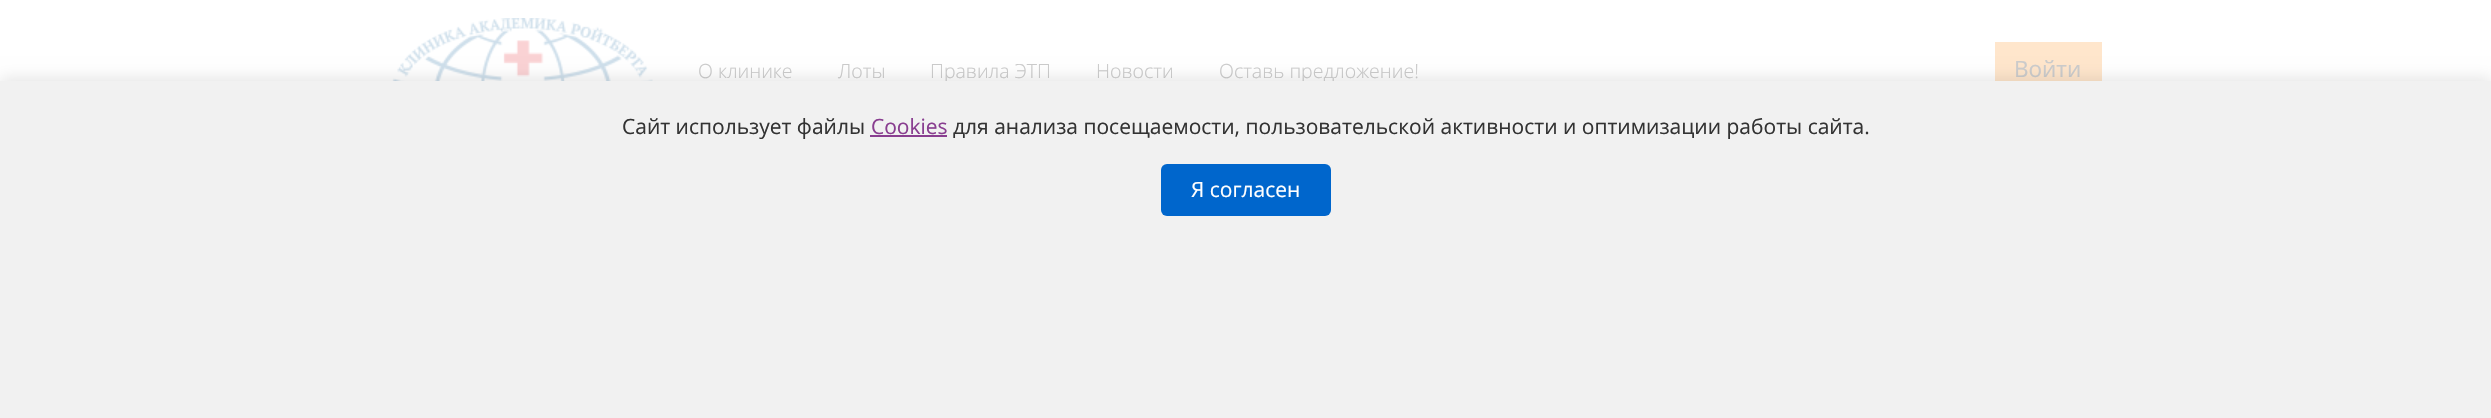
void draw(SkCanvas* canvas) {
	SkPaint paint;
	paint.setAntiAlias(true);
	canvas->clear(0xffffffff);
	canvas->drawImageRect(SkImages::DeferredFromEncodedData(SkData::MakeFromFileName("img1.png")), SkRect::MakeXYWH(392, 18, 261, 63), SkSamplingOptions());
	SkFont f1(fontMgr->matchFamilyStyle("Open Sans", SkFontStyle(300, SkFontStyle::kNormal_Width, SkFontStyle::kUpright_Slant)), 19.5);
	f1.setSubpixel(true);
	paint.setColor(0xffcccccc);
	canvas->drawString("О клинике", 698, 78, f1, paint);
	canvas->drawString("Лоты", 838, 78, f1, paint);
	canvas->drawString("Правила ЭТП", 930, 78, f1, paint);
	canvas->drawString("Новости", 1096, 78, f1, paint);
	canvas->drawString("Оставь предложение!", 1219, 78, f1, paint);
	paint.setColor(0xffffe6cc);
	canvas->drawRect(SkRect::MakeXYWH(1995, 42, 107, 39), paint);
	SkFont f2(fontMgr->matchFamilyStyle("Open Sans", SkFontStyle::Normal()), 22.5);
	f2.setSubpixel(true);
	paint.setColor(0xffcccccc);
	canvas->drawString("Войти", 2014, 77, f2, paint);
	paint.setColor(0x1a000000);
	paint.setMaskFilter(SkMaskFilter::MakeBlur(kNormal_SkBlurStyle, 7.5));
	canvas->drawRect(SkRect::MakeXYWH(0, 78, 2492, 338), paint);
	paint.setMaskFilter(nullptr);
	paint.setColor(0xfff1f1f1);
	canvas->drawRect(SkRect::MakeXYWH(0, 81, 2491, 337), paint);
	SkFont f3(fontMgr->matchFamilyStyle("Open Sans", SkFontStyle::Normal()), 21);
	f3.setSubpixel(true);
	paint.setColor(0xff333333);
	canvas->drawString("Сайт использует файлы", 622, 134, f3, paint);
	paint.setColor(0xff893e90);
	canvas->drawString("Cookies", 871, 134, f3, paint);
	canvas->drawRect(SkRect::MakeXYWH(870, 135, 77, 2), paint);
	paint.setColor(0xff333333);
	canvas->drawString("для анализа посещаемости, пользовательской активности и оптимизации работы сайта.", 953, 134, f3, paint);
	paint.setColor(0xff0066cc);
	canvas->drawRoundRect(SkRect::MakeXYWH(1161, 164, 170, 52), 6, 6, paint);
	paint.setColor(0xffffffff);
	canvas->drawString("Я согласен", 1191, 197, f3, paint);
}
